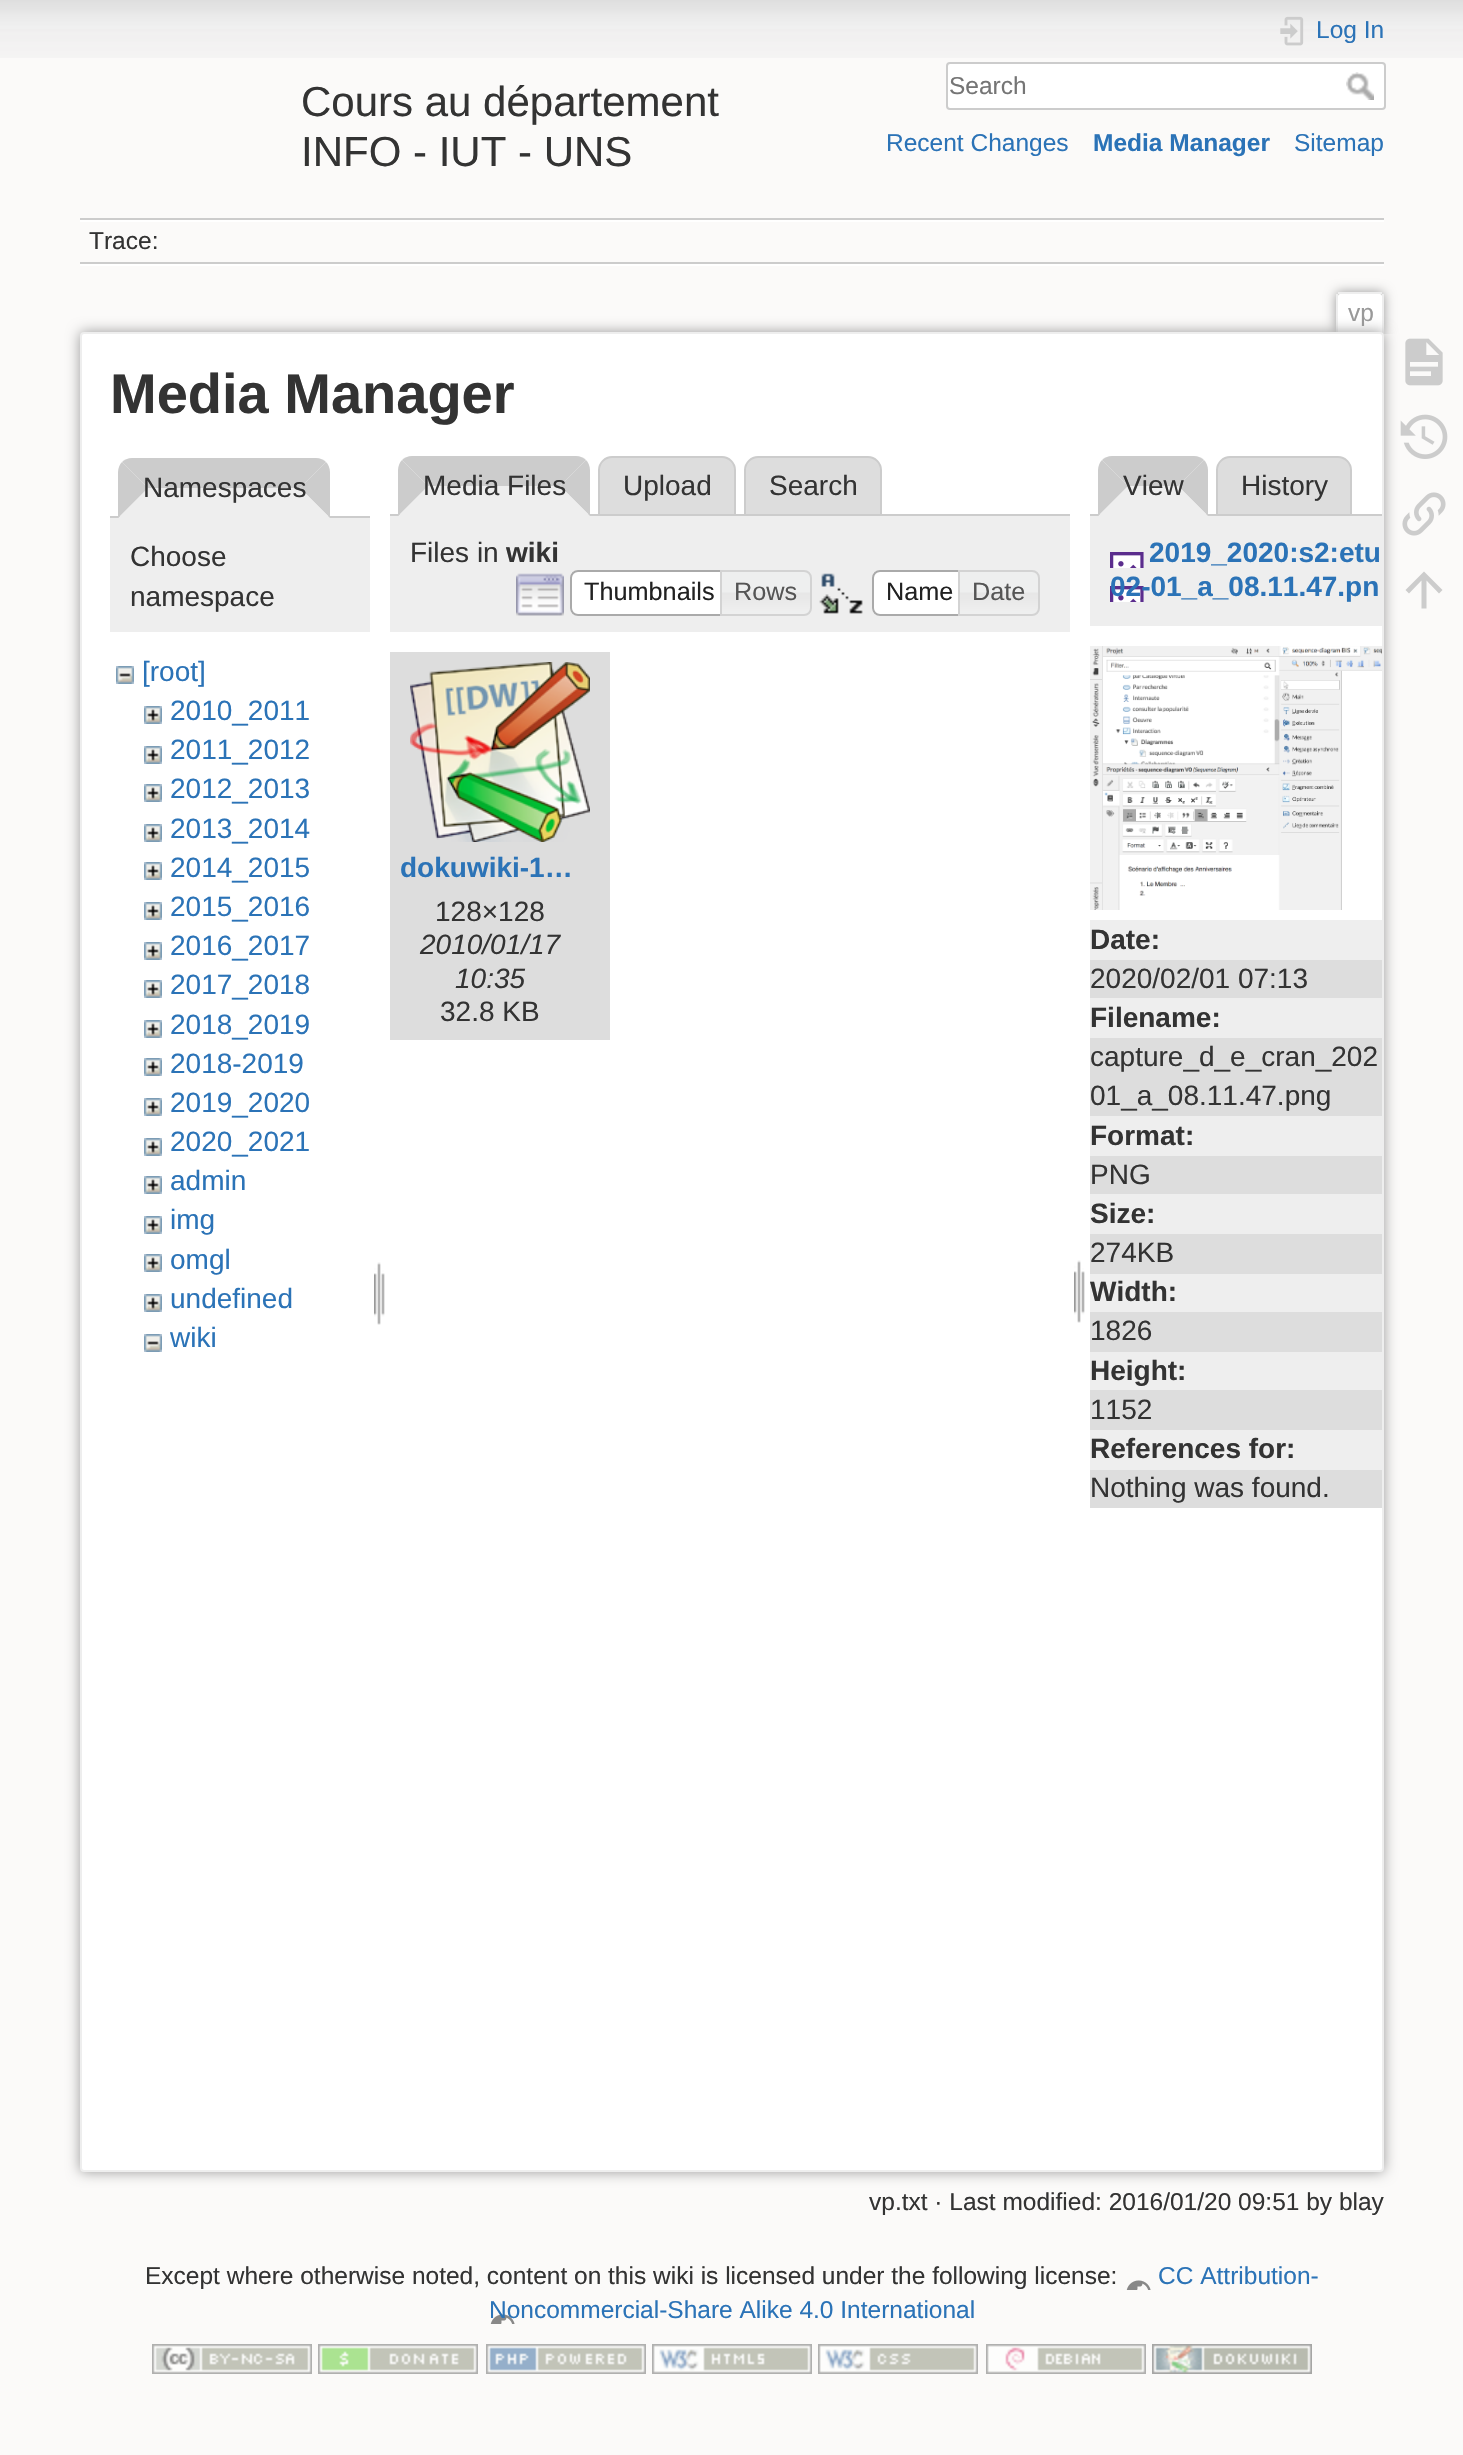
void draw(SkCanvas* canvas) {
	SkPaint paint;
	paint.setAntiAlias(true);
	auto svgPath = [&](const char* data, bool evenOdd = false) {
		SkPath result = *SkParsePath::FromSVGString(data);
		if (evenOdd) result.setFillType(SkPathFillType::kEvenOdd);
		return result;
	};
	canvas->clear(0xfffbfaf9);
	canvas->drawImageRect(SkImages::DeferredFromEncodedData(SkData::MakeFromFileName("img1.png")), SkRect::MakeXYWH(0, 0, 1463, 58), SkSamplingOptions());
	SkFont f1(fontMgr->matchFamilyStyle("Liberation Sans", SkFontStyle::Normal()), 42);
	f1.setSubpixel(true);
	paint.setColor(0xff333333);
	canvas->drawString("Cours au département", 301, 116, f1, paint);
	canvas->drawString("INFO - IUT - UNS", 301, 166, f1, paint);
	canvas->drawImageRect(SkImages::DeferredFromEncodedData(SkData::MakeFromFileName("img2.png")), SkRect::MakeXYWH(1280, 16, 24, 30), SkSamplingOptions());
	SkFont f2(fontMgr->matchFamilyStyle("Liberation Sans", SkFontStyle::Normal()), 24.5);
	f2.setSubpixel(true);
	paint.setColor(0xff2b73b7);
	canvas->drawString("Log In", 1316, 38, f2, paint);
	paint.setColor(0xffffffff);
	canvas->drawRoundRect(SkRect::MakeXYWH(947, 63, 438, 46), 3, 3, paint);
	paint.setStroke(true);
	paint.setStrokeWidth(2);
	paint.setColor(0xffcccccc);
	canvas->drawRoundRect(SkRect::MakeXYWH(947, 63, 438, 46), 3, 3, paint);
	paint.setStroke(false);
	paint.setColor(0xff757575);
	canvas->drawString("Search", 949, 94, f2, paint);
	canvas->drawImageRect(SkImages::DeferredFromEncodedData(SkData::MakeFromFileName("img3.png")), SkRect::MakeXYWH(1346, 72, 28, 28), SkSamplingOptions());
	paint.setColor(0xff2b73b7);
	canvas->drawString("Recent Changes", 886, 151, f2, paint);
	SkFont f3(fontMgr->matchFamilyStyle("Liberation Sans", SkFontStyle::Bold()), 24.5);
	f3.setSubpixel(true);
	canvas->drawString("Media Manager", 1093, 151, f3, paint);
	canvas->drawString("Sitemap", 1294, 151, f2, paint);
	paint.setColor(0xffcccccc);
	canvas->drawRect(SkRect::MakeXYWH(80, 218, 1304, 2), paint);
	paint.setColor(0xffffffff);
	canvas->drawRect(SkRect::MakeXYWH(80, 264, 1304, 2), paint);
	canvas->drawRect(SkRect::MakeXYWH(80, 220, 1304, 2), paint);
	paint.setColor(0xffcccccc);
	canvas->drawRect(SkRect::MakeXYWH(80, 262, 1304, 2), paint);
	paint.setColor(0xff333333);
	canvas->drawString("Trace:", 89, 249, f2, paint);
	canvas->save();
	canvas->clipRect(SkRect::MakeXYWH(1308, 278, 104, 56));
	paint.setColor(0xff999999);
	paint.setMaskFilter(SkMaskFilter::MakeBlur(kNormal_SkBlurStyle, 6));
	canvas->drawRoundRect(SkRect::MakeXYWH(1336, 292, 48, 42), 4, 4, paint);
	paint.setMaskFilter(nullptr);
	canvas->restore();
	paint.setColor(0xffffffff);
	canvas->drawPath(svgPath("M1340 294H1380C1381 294 1382 295 1382 296V334H1338V296C1338 295 1339 294 1340 294Z"), paint);
	paint.setColor(0xffeeeeee);
	canvas->drawRect(SkRect::MakeXYWH(1338, 292, 44, 2), paint);
	canvas->drawRect(SkRect::MakeXYWH(1382, 294, 2, 40), paint);
	canvas->drawRect(SkRect::MakeXYWH(1336, 294, 2, 40), paint);
	paint.setColor(0xff999999);
	canvas->drawString("vp", 1348, 321, f2, paint);
	paint.setMaskFilter(SkMaskFilter::MakeBlur(kNormal_SkBlurStyle, 7));
	canvas->drawRoundRect(SkRect::MakeXYWH(80, 332, 1304, 1840), 4, 4, paint);
	paint.setMaskFilter(nullptr);
	paint.setColor(0xffffffff);
	canvas->drawRoundRect(SkRect::MakeXYWH(81, 333, 1302, 1838), 3, 3, paint);
	paint.setStroke(true);
	paint.setColor(0xffeeeeee);
	canvas->drawRoundRect(SkRect::MakeXYWH(81, 333, 1302, 1838), 3, 3, paint);
	SkFont f4(fontMgr->matchFamilyStyle("Liberation Sans", SkFontStyle::Bold()), 56);
	f4.setSubpixel(true);
	paint.setStroke(false);
	paint.setColor(0xff333333);
	canvas->drawString("Media Manager", 110, 413, f4, paint);
	paint.setColor(0xffcccccc);
	canvas->drawPath(svgPath("M132 458H316C320 458 324 460 326 462L300 488H148L122 462C124 460 128 458 132 458Z"), paint);
	canvas->drawRect(SkRect::MakeXYWH(110, 516, 260, 2), paint);
	canvas->drawPath(svgPath("M326 462L300 488L330 518V472C330 468 328 464 326 462Z"), paint);
	paint.setColor(0xffeeeeee);
	canvas->drawPath(svgPath("M330 518L300 488H148L118 518Z"), paint);
	paint.setColor(0xffcccccc);
	canvas->drawPath(svgPath("M118 518V472C118 468 120 464 122 462L148 488Z"), paint);
	SkFont f5(fontMgr->matchFamilyStyle("Liberation Sans", SkFontStyle::Normal()), 28);
	f5.setSubpixel(true);
	paint.setColor(0xff333333);
	canvas->drawString("Namespaces", 143, 497, f5, paint);
	paint.setColor(0xffeeeeee);
	canvas->drawRect(SkRect::MakeXYWH(110, 518, 260, 114), paint);
	paint.setColor(0xff333333);
	canvas->drawString("Choose", 130, 566, f5, paint);
	canvas->drawString("namespace", 130, 606, f5, paint);
	canvas->drawImageRect(SkImages::DeferredFromEncodedData(SkData::MakeFromFileName("img4.png")), SkRect::MakeXYWH(116, 666, 18, 18), SkSamplingOptions());
	paint.setColor(0xff2b73b7);
	canvas->drawString("[root]", 142, 681, f5, paint);
	canvas->drawImageRect(SkImages::DeferredFromEncodedData(SkData::MakeFromFileName("img5.png")), SkRect::MakeXYWH(144, 706, 18, 18), SkSamplingOptions());
	canvas->drawString("2010_2011", 170, 720, f5, paint);
	canvas->drawImageRect(SkImages::DeferredFromEncodedData(SkData::MakeFromFileName("img5.png")), SkRect::MakeXYWH(144, 746, 18, 18), SkSamplingOptions());
	canvas->drawString("2011_2012", 170, 759, f5, paint);
	canvas->drawImageRect(SkImages::DeferredFromEncodedData(SkData::MakeFromFileName("img5.png")), SkRect::MakeXYWH(144, 784, 18, 18), SkSamplingOptions());
	canvas->drawString("2012_2013", 170, 798, f5, paint);
	canvas->drawImageRect(SkImages::DeferredFromEncodedData(SkData::MakeFromFileName("img5.png")), SkRect::MakeXYWH(144, 824, 18, 18), SkSamplingOptions());
	canvas->drawString("2013_2014", 170, 838, f5, paint);
	canvas->drawImageRect(SkImages::DeferredFromEncodedData(SkData::MakeFromFileName("img5.png")), SkRect::MakeXYWH(144, 862, 18, 18), SkSamplingOptions());
	canvas->drawString("2014_2015", 170, 877, f5, paint);
	canvas->drawImageRect(SkImages::DeferredFromEncodedData(SkData::MakeFromFileName("img5.png")), SkRect::MakeXYWH(144, 902, 18, 18), SkSamplingOptions());
	canvas->drawString("2015_2016", 170, 916, f5, paint);
	canvas->drawImageRect(SkImages::DeferredFromEncodedData(SkData::MakeFromFileName("img5.png")), SkRect::MakeXYWH(144, 942, 18, 18), SkSamplingOptions());
	canvas->drawString("2016_2017", 170, 955, f5, paint);
	canvas->drawImageRect(SkImages::DeferredFromEncodedData(SkData::MakeFromFileName("img5.png")), SkRect::MakeXYWH(144, 980, 18, 18), SkSamplingOptions());
	canvas->drawString("2017_2018", 170, 994, f5, paint);
	canvas->drawImageRect(SkImages::DeferredFromEncodedData(SkData::MakeFromFileName("img5.png")), SkRect::MakeXYWH(144, 1020, 18, 18), SkSamplingOptions());
	canvas->drawString("2018_2019", 170, 1034, f5, paint);
	canvas->drawImageRect(SkImages::DeferredFromEncodedData(SkData::MakeFromFileName("img5.png")), SkRect::MakeXYWH(144, 1058, 18, 18), SkSamplingOptions());
	canvas->drawString("2018-2019", 170, 1073, f5, paint);
	canvas->drawImageRect(SkImages::DeferredFromEncodedData(SkData::MakeFromFileName("img5.png")), SkRect::MakeXYWH(144, 1098, 18, 18), SkSamplingOptions());
	canvas->drawString("2019_2020", 170, 1112, f5, paint);
	canvas->drawImageRect(SkImages::DeferredFromEncodedData(SkData::MakeFromFileName("img5.png")), SkRect::MakeXYWH(144, 1138, 18, 18), SkSamplingOptions());
	canvas->drawString("2020_2021", 170, 1151, f5, paint);
	canvas->drawImageRect(SkImages::DeferredFromEncodedData(SkData::MakeFromFileName("img5.png")), SkRect::MakeXYWH(144, 1176, 18, 18), SkSamplingOptions());
	canvas->drawString("admin", 170, 1190, f5, paint);
	canvas->drawImageRect(SkImages::DeferredFromEncodedData(SkData::MakeFromFileName("img5.png")), SkRect::MakeXYWH(144, 1216, 18, 18), SkSamplingOptions());
	canvas->drawString("img", 170, 1229, f5, paint);
	canvas->drawImageRect(SkImages::DeferredFromEncodedData(SkData::MakeFromFileName("img5.png")), SkRect::MakeXYWH(144, 1254, 18, 18), SkSamplingOptions());
	canvas->drawString("omgl", 170, 1269, f5, paint);
	canvas->drawImageRect(SkImages::DeferredFromEncodedData(SkData::MakeFromFileName("img5.png")), SkRect::MakeXYWH(144, 1294, 18, 18), SkSamplingOptions());
	canvas->drawString("undefined", 170, 1308, f5, paint);
	canvas->drawImageRect(SkImages::DeferredFromEncodedData(SkData::MakeFromFileName("img4.png")), SkRect::MakeXYWH(144, 1334, 18, 18), SkSamplingOptions());
	canvas->drawString("wiki", 170, 1347, f5, paint);
	canvas->drawImageRect(SkImages::DeferredFromEncodedData(SkData::MakeFromFileName("img6.png")), SkRect::MakeXYWH(374, 1262, 11, 63), SkSamplingOptions());
	paint.setColor(0xffcccccc);
	canvas->drawPath(svgPath("M412 456H576C580 456 584 458 586 460L560 486H428L402 460C404 458 408 456 412 456Z"), paint);
	paint.setColor(0xffdddddd);
	canvas->drawPath(svgPath("M612 457H722C729 457 735 463 735 470V515H599V470C599 463 605 457 612 457Z"), paint);
	paint.setStroke(true);
	paint.setColor(0xffcccccc);
	canvas->drawPath(svgPath("M612 457H722C729 457 735 463 735 470V515H599V470C599 463 605 457 612 457Z"), paint);
	paint.setStroke(false);
	paint.setColor(0xffdddddd);
	canvas->drawPath(svgPath("M758 457H868C875 457 881 463 881 470V515H745V470C745 463 751 457 758 457Z"), paint);
	paint.setStroke(true);
	paint.setColor(0xffcccccc);
	canvas->drawPath(svgPath("M758 457H868C875 457 881 463 881 470V515H745V470C745 463 751 457 758 457Z"), paint);
	paint.setStroke(false);
	canvas->drawRect(SkRect::MakeXYWH(390, 514, 680, 2), paint);
	canvas->drawPath(svgPath("M586 460L560 486L590 516V470C590 466 588 462 586 460Z"), paint);
	paint.setColor(0xffeeeeee);
	canvas->drawPath(svgPath("M590 516L560 486H428L398 516Z"), paint);
	paint.setColor(0xffcccccc);
	canvas->drawPath(svgPath("M398 516V470C398 466 400 462 402 460L428 486Z"), paint);
	paint.setColor(0xff333333);
	canvas->drawString("Media Files", 423, 495, f5, paint);
	canvas->drawString("Upload", 623, 495, f5, paint);
	canvas->drawString("Search", 769, 495, f5, paint);
	paint.setColor(0xffeeeeee);
	canvas->drawRect(SkRect::MakeXYWH(390, 516, 680, 116), paint);
	paint.setColor(0xff333333);
	canvas->drawString("Files in", 410, 562, f5, paint);
	SkFont f6(fontMgr->matchFamilyStyle("Liberation Sans", SkFontStyle::Bold()), 28);
	f6.setSubpixel(true);
	canvas->drawString("wiki", 506, 562, f6, paint);
	canvas->drawImageRect(SkImages::DeferredFromEncodedData(SkData::MakeFromFileName("img7.png")), SkRect::MakeXYWH(516, 573, 48, 43), SkSamplingOptions());
	paint.setColor(0xffffffff);
	canvas->drawPath(svgPath("M578 570H730V616H578C573.5 616 570 612.5 570 608V578C570 573.5 573.5 570 578 570Z"), paint);
	canvas->drawImageRect(SkImages::DeferredFromEncodedData(SkData::MakeFromFileName("img8.png")), SkRect::MakeXYWH(570, 570, 6, 46), SkSamplingOptions());
	paint.setStroke(true);
	paint.setColor(0xffaaaaaa);
	canvas->drawPath(svgPath("M578 571H729V615H578C574 615 571 612 571 608V578C571 574 574 571 578 571Z"), paint);
	SkFont f7(fontMgr->matchFamilyStyle("Liberation Sans", SkFontStyle::Normal()), 25.25);
	f7.setSubpixel(true);
	paint.setStroke(false);
	paint.setColor(0xff212121);
	canvas->drawString("Thumbnails", 584, 600, f7, paint);
	canvas->drawImageRect(SkImages::DeferredFromEncodedData(SkData::MakeFromFileName("img9.png")), SkRect::MakeXYWH(722, 570, 90, 46), SkSamplingOptions());
	paint.setStroke(true);
	paint.setColor(0xffd3d3d3);
	canvas->drawPath(svgPath("M721 571H804C808 571 811 574 811 578V608C811 612 808 615 804 615H721Z"), paint);
	paint.setStroke(false);
	paint.setColor(0xff555555);
	canvas->drawString("Rows", 734, 600, f7, paint);
	canvas->drawImageRect(SkImages::DeferredFromEncodedData(SkData::MakeFromFileName("img10.png")), SkRect::MakeXYWH(819, 573, 44, 41), SkSamplingOptions());
	paint.setColor(0xffffffff);
	canvas->drawPath(svgPath("M880 570H968V616H880C875.5 616 872 612.5 872 608V578C872 573.5 875.5 570 880 570Z"), paint);
	canvas->drawImageRect(SkImages::DeferredFromEncodedData(SkData::MakeFromFileName("img8.png")), SkRect::MakeXYWH(872, 570, 6, 46), SkSamplingOptions());
	paint.setStroke(true);
	paint.setColor(0xffaaaaaa);
	canvas->drawPath(svgPath("M880 571H967V615H880C876 615 873 612 873 608V578C873 574 876 571 880 571Z"), paint);
	paint.setStroke(false);
	paint.setColor(0xff212121);
	canvas->drawString("Name", 886, 600, f7, paint);
	canvas->drawImageRect(SkImages::DeferredFromEncodedData(SkData::MakeFromFileName("img11.png")), SkRect::MakeXYWH(960, 570, 80, 46), SkSamplingOptions());
	paint.setStroke(true);
	paint.setColor(0xffd3d3d3);
	canvas->drawPath(svgPath("M959 571H1032C1036 571 1039 574 1039 578V608C1039 612 1036 615 1032 615H959Z"), paint);
	paint.setStroke(false);
	paint.setColor(0xff555555);
	canvas->drawString("Date", 972, 600, f7, paint);
	paint.setColor(0xffdddddd);
	canvas->drawRect(SkRect::MakeXYWH(390, 652, 220, 388), paint);
	canvas->drawImageRect(SkImages::DeferredFromEncodedData(SkData::MakeFromFileName("img12.png")), SkRect::MakeXYWH(410, 662, 180, 180), SkSamplingOptions());
	paint.setColor(0xff2b73b7);
	canvas->drawString("dokuwiki-1…", 400, 877, f6, paint);
	paint.setColor(0xff333333);
	canvas->drawString("128×128", 435, 921, f5, paint);
	SkFont f8(fontMgr->matchFamilyStyle("Liberation Sans", SkFontStyle::Italic()), 28);
	f8.setSubpixel(true);
	canvas->drawString("2010/01/17", 420, 954, f8, paint);
	canvas->drawString("10:35", 455, 988, f8, paint);
	canvas->drawString("32.8 KB", 440, 1021, f5, paint);
	canvas->drawImageRect(SkImages::DeferredFromEncodedData(SkData::MakeFromFileName("img6.png")), SkRect::MakeXYWH(1074, 1260, 11, 63), SkSamplingOptions());
	paint.setColor(0xffcccccc);
	canvas->drawPath(svgPath("M1112 456H1194C1198 456 1202 458 1204 460L1178 486H1128L1102 460C1104 458 1108 456 1112 456Z"), paint);
	paint.setColor(0xffdddddd);
	canvas->drawPath(svgPath("M1230 457H1338C1345 457 1351 463 1351 470V515H1217V470C1217 463 1223 457 1230 457Z"), paint);
	paint.setStroke(true);
	paint.setColor(0xffcccccc);
	canvas->drawPath(svgPath("M1230 457H1338C1345 457 1351 463 1351 470V515H1217V470C1217 463 1223 457 1230 457Z"), paint);
	paint.setStroke(false);
	canvas->drawRect(SkRect::MakeXYWH(1090, 514, 292, 2), paint);
	canvas->drawPath(svgPath("M1204 460L1178 486L1208 516V470C1208 466 1206 462 1204 460Z"), paint);
	paint.setColor(0xffeeeeee);
	canvas->drawPath(svgPath("M1208 516L1178 486H1128L1098 516Z"), paint);
	paint.setColor(0xffcccccc);
	canvas->drawPath(svgPath("M1098 516V470C1098 466 1100 462 1102 460L1128 486Z"), paint);
	paint.setColor(0xff333333);
	canvas->drawString("View", 1123, 495, f5, paint);
	canvas->drawString("History", 1241, 495, f5, paint);
	paint.setColor(0xffeeeeee);
	canvas->drawRect(SkRect::MakeXYWH(1090, 516, 292, 110), paint);
	canvas->drawImageRect(SkImages::DeferredFromEncodedData(SkData::MakeFromFileName("img13.png")), SkRect::MakeXYWH(1110, 552, 34, 50), SkSamplingOptions());
	paint.setColor(0xff2b73b7);
	canvas->drawString("2019_2020:s2:etu", 1149, 562, f6, paint);
	canvas->drawString("02-01_a_08.11.47.pn", 1110, 596, f6, paint);
	canvas->drawImageRect(SkImages::DeferredFromEncodedData(SkData::MakeFromFileName("img14.png")), SkRect::MakeXYWH(1090, 646, 292, 264), SkSamplingOptions());
	paint.setColor(0xffeeeeee);
	canvas->drawRect(SkRect::MakeXYWH(1090, 920, 292, 40), paint);
	paint.setColor(0xff333333);
	canvas->drawString("Date:", 1090, 949, f6, paint);
	paint.setColor(0xffdddddd);
	canvas->drawRect(SkRect::MakeXYWH(1090, 960, 292, 38), paint);
	paint.setColor(0xff333333);
	canvas->drawString("2020/02/01 07:13", 1090, 988, f5, paint);
	paint.setColor(0xffeeeeee);
	canvas->drawRect(SkRect::MakeXYWH(1090, 998, 292, 40), paint);
	paint.setColor(0xff333333);
	canvas->drawString("Filename:", 1090, 1027, f6, paint);
	paint.setColor(0xffdddddd);
	canvas->drawRect(SkRect::MakeXYWH(1090, 1038, 292, 78), paint);
	paint.setColor(0xff333333);
	canvas->drawString("capture_d_e_cran_202", 1090, 1066, f5, paint);
	canvas->drawString("01_a_08.11.47.png", 1090, 1105, f5, paint);
	paint.setColor(0xffeeeeee);
	canvas->drawRect(SkRect::MakeXYWH(1090, 1116, 292, 40), paint);
	paint.setColor(0xff333333);
	canvas->drawString("Format:", 1090, 1145, f6, paint);
	paint.setColor(0xffdddddd);
	canvas->drawRect(SkRect::MakeXYWH(1090, 1156, 292, 38), paint);
	paint.setColor(0xff333333);
	canvas->drawString("PNG", 1090, 1184, f5, paint);
	paint.setColor(0xffeeeeee);
	canvas->drawRect(SkRect::MakeXYWH(1090, 1194, 292, 40), paint);
	paint.setColor(0xff333333);
	canvas->drawString("Size:", 1090, 1223, f6, paint);
	paint.setColor(0xffdddddd);
	canvas->drawRect(SkRect::MakeXYWH(1090, 1234, 292, 40), paint);
	paint.setColor(0xff333333);
	canvas->drawString("274KB", 1090, 1262, f5, paint);
	paint.setColor(0xffeeeeee);
	canvas->drawRect(SkRect::MakeXYWH(1090, 1274, 292, 38), paint);
	paint.setColor(0xff333333);
	canvas->drawString("Width:", 1090, 1301, f6, paint);
	paint.setColor(0xffdddddd);
	canvas->drawRect(SkRect::MakeXYWH(1090, 1312, 292, 40), paint);
	paint.setColor(0xff333333);
	canvas->drawString("1826", 1090, 1340, f5, paint);
	paint.setColor(0xffeeeeee);
	canvas->drawRect(SkRect::MakeXYWH(1090, 1352, 292, 38), paint);
	paint.setColor(0xff333333);
	canvas->drawString("Height:", 1090, 1380, f6, paint);
	paint.setColor(0xffdddddd);
	canvas->drawRect(SkRect::MakeXYWH(1090, 1390, 292, 40), paint);
	paint.setColor(0xff333333);
	canvas->drawString("1152", 1090, 1419, f5, paint);
	paint.setColor(0xffeeeeee);
	canvas->drawRect(SkRect::MakeXYWH(1090, 1430, 292, 40), paint);
	paint.setColor(0xff333333);
	canvas->drawString("References for:", 1090, 1458, f6, paint);
	paint.setColor(0xffdddddd);
	canvas->drawRect(SkRect::MakeXYWH(1090, 1470, 292, 38), paint);
	paint.setColor(0xff333333);
	canvas->drawString("Nothing was found.", 1090, 1497, f5, paint);
	canvas->drawString("vp.txt · Last modified: 2016/01/20 09:51 by blay", 869, 2210, f2, paint);
	canvas->drawImageRect(SkImages::DeferredFromEncodedData(SkData::MakeFromFileName("img15.png")), SkRect::MakeXYWH(1405, 338, 38, 48), SkSamplingOptions());
	canvas->drawImageRect(SkImages::DeferredFromEncodedData(SkData::MakeFromFileName("img16.png")), SkRect::MakeXYWH(1400, 414, 48, 45), SkSamplingOptions());
	canvas->drawImageRect(SkImages::DeferredFromEncodedData(SkData::MakeFromFileName("img17.png")), SkRect::MakeXYWH(1402, 492, 44, 44), SkSamplingOptions());
	paint.setColor(0xffcccccc);
	canvas->drawPath(svgPath("M1426.5 608.5H1421.5V580.5L1409 593.5L1405.5 590L1424 571.5L1442.5 590L1439 593.5L1426.5 580.5Z"), paint);
	paint.setColor(0xff333333);
	canvas->drawString("Except where otherwise noted, content on this wiki is licensed under the following license:", 145, 2284, f2, paint);
	paint.setColor(0xff2b73b7);
	canvas->drawString("CC Attribution-", 1158, 2284, f2, paint);
	canvas->drawImageRect(SkImages::DeferredFromEncodedData(SkData::MakeFromFileName("img18.png")), SkRect::MakeXYWH(490, 2280, 661, 44), SkSamplingOptions());
	canvas->drawString("Noncommercial-Share Alike 4.0 International", 489, 2318, f2, paint);
	canvas->drawImageRect(SkImages::DeferredFromEncodedData(SkData::MakeFromFileName("img19.png")), SkRect::MakeXYWH(152, 2344, 160, 30), SkSamplingOptions());
	canvas->drawImageRect(SkImages::DeferredFromEncodedData(SkData::MakeFromFileName("img20.png")), SkRect::MakeXYWH(318, 2344, 160, 30), SkSamplingOptions());
	canvas->drawImageRect(SkImages::DeferredFromEncodedData(SkData::MakeFromFileName("img21.png")), SkRect::MakeXYWH(486, 2344, 160, 30), SkSamplingOptions());
	canvas->drawImageRect(SkImages::DeferredFromEncodedData(SkData::MakeFromFileName("img22.png")), SkRect::MakeXYWH(652, 2344, 160, 30), SkSamplingOptions());
	canvas->drawImageRect(SkImages::DeferredFromEncodedData(SkData::MakeFromFileName("img23.png")), SkRect::MakeXYWH(818, 2344, 160, 30), SkSamplingOptions());
	canvas->drawImageRect(SkImages::DeferredFromEncodedData(SkData::MakeFromFileName("img24.png")), SkRect::MakeXYWH(986, 2344, 160, 30), SkSamplingOptions());
	canvas->drawImageRect(SkImages::DeferredFromEncodedData(SkData::MakeFromFileName("img25.png")), SkRect::MakeXYWH(1152, 2344, 160, 30), SkSamplingOptions());
}
